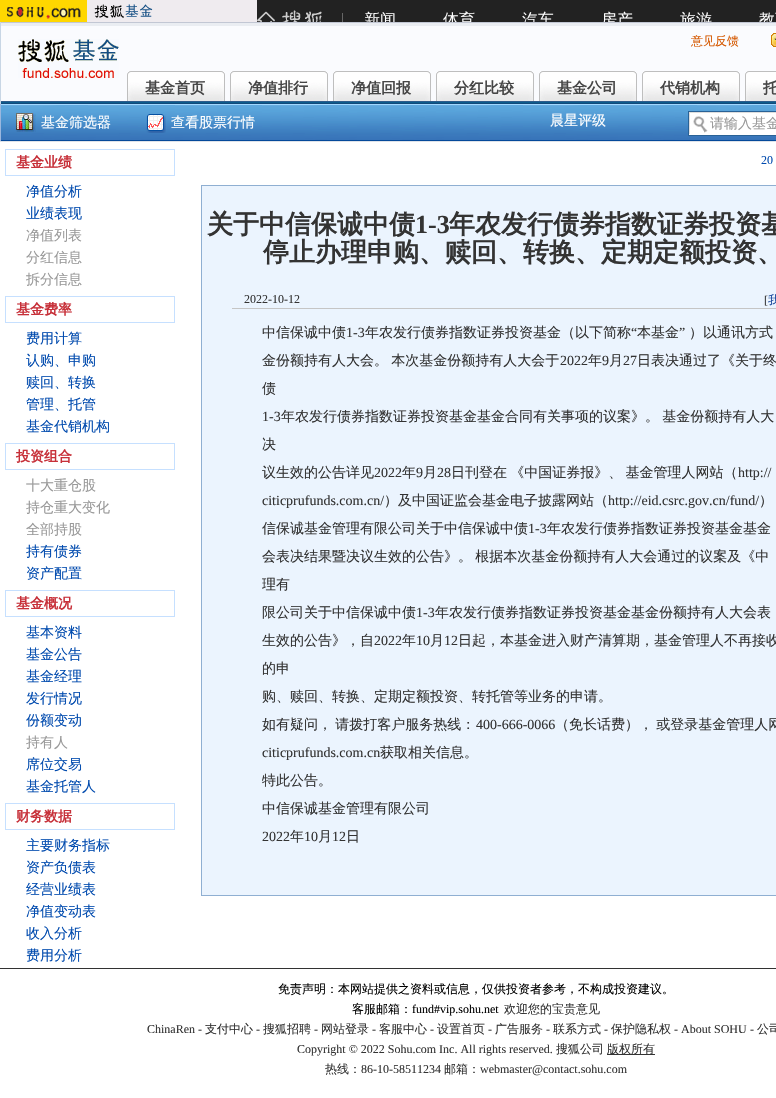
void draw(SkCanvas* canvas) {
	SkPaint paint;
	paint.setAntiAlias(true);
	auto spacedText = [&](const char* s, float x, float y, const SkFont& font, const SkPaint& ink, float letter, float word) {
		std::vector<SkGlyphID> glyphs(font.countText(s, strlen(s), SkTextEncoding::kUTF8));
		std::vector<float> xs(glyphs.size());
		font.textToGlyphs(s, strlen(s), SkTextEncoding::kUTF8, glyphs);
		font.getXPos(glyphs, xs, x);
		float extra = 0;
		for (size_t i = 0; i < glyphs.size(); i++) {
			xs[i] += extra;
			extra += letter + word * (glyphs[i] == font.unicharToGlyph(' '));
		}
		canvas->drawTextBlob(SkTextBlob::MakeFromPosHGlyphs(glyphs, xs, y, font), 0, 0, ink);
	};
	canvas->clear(0xffffffff);
	canvas->drawImageRect(SkImages::DeferredFromEncodedData(SkData::MakeFromFileName("img1.png")), SkRect::MakeXYWH(0, 0, 776, 22), SkSamplingOptions());
	paint.setColor(0xfffafbfe);
	canvas->drawRect(SkRect::MakeXYWH(1, 26, 775, 75), paint);
	paint.setColor(0xffeaedf2);
	canvas->drawRect(SkRect::MakeXYWH(0, 23, 776, 3), paint);
	paint.setColor(0xffc2c7d4);
	canvas->drawRect(SkRect::MakeXYWH(0, 22, 776, 1), paint);
	paint.setColor(0xffc8d6e5);
	canvas->drawRect(SkRect::MakeXYWH(0, 22, 1, 82), paint);
	canvas->drawImageRect(SkImages::DeferredFromEncodedData(SkData::MakeFromFileName("img2.png")), SkRect::MakeXYWH(18, 39, 101, 39), SkSamplingOptions());
	SkFont f1(fontMgr->matchFamilyStyle("WenQuanYi Zen Hei", SkFontStyle(500, SkFontStyle::kNormal_Width, SkFontStyle::kUpright_Slant)), 12);
	f1.setSubpixel(true);
	paint.setColor(0xffd55800);
	canvas->drawString("意见反馈", 691, 45, f1, paint);
	canvas->drawImageRect(SkImages::DeferredFromEncodedData(SkData::MakeFromFileName("img3.png")), SkRect::MakeXYWH(771, 33, 5, 14), SkSamplingOptions());
	canvas->drawImageRect(SkImages::DeferredFromEncodedData(SkData::MakeFromFileName("img4.png")), SkRect::MakeXYWH(127, 71, 98, 30), SkSamplingOptions());
	SkFont f2(fontMgr->matchFamilyStyle("WenQuanYi Zen Hei", SkFontStyle::Bold()), 15);
	f2.setSubpixel(true);
	paint.setColor(0xff464646);
	canvas->drawString("基金首页", 145, 93, f2, paint);
	canvas->drawImageRect(SkImages::DeferredFromEncodedData(SkData::MakeFromFileName("img4.png")), SkRect::MakeXYWH(230, 71, 98, 30), SkSamplingOptions());
	canvas->drawString("净值排行", 248, 93, f2, paint);
	canvas->drawImageRect(SkImages::DeferredFromEncodedData(SkData::MakeFromFileName("img4.png")), SkRect::MakeXYWH(333, 71, 98, 30), SkSamplingOptions());
	canvas->drawString("净值回报", 351, 93, f2, paint);
	canvas->drawImageRect(SkImages::DeferredFromEncodedData(SkData::MakeFromFileName("img4.png")), SkRect::MakeXYWH(436, 71, 98, 30), SkSamplingOptions());
	canvas->drawString("分红比较", 454, 93, f2, paint);
	canvas->drawImageRect(SkImages::DeferredFromEncodedData(SkData::MakeFromFileName("img4.png")), SkRect::MakeXYWH(539, 71, 98, 30), SkSamplingOptions());
	canvas->drawString("基金公司", 557, 93, f2, paint);
	canvas->drawImageRect(SkImages::DeferredFromEncodedData(SkData::MakeFromFileName("img4.png")), SkRect::MakeXYWH(642, 71, 98, 30), SkSamplingOptions());
	canvas->drawString("代销机构", 660, 93, f2, paint);
	canvas->drawImageRect(SkImages::DeferredFromEncodedData(SkData::MakeFromFileName("img5.png")), SkRect::MakeXYWH(745, 71, 31, 30), SkSamplingOptions());
	canvas->drawString("托", 763, 93, f2, paint);
	paint.setColor(0xff0b5c8c);
	canvas->drawRect(SkRect::MakeXYWH(1, 102, 775, 1), paint);
	paint.setColor(0xff2e5b8b);
	canvas->drawRect(SkRect::MakeXYWH(1, 101, 775, 1), paint);
	paint.setColor(0xff124879);
	canvas->drawRect(SkRect::MakeXYWH(1, 103, 775, 1), paint);
	canvas->drawImageRect(SkImages::DeferredFromEncodedData(SkData::MakeFromFileName("img6.png")), SkRect::MakeXYWH(1, 105, 775, 35), SkSamplingOptions());
	paint.setColor(0xffa1d8ff);
	canvas->drawRect(SkRect::MakeXYWH(0, 104, 776, 1), paint);
	paint.setColor(0xff05499a);
	canvas->drawRect(SkRect::MakeXYWH(0, 140, 776, 1), paint);
	paint.setColor(0xff9bb7de);
	canvas->drawRect(SkRect::MakeXYWH(0, 104, 1, 37), paint);
	canvas->drawImageRect(SkImages::DeferredFromEncodedData(SkData::MakeFromFileName("img7.png")), SkRect::MakeXYWH(16, 113, 20, 19), SkSamplingOptions());
	SkFont f3(fontMgr->matchFamilyStyle("WenQuanYi Zen Hei", SkFontStyle(500, SkFontStyle::kNormal_Width, SkFontStyle::kUpright_Slant)), 14);
	f3.setSubpixel(true);
	paint.setColor(0xffffffff);
	canvas->drawString("基金筛选器", 41, 127, f3, paint);
	canvas->drawImageRect(SkImages::DeferredFromEncodedData(SkData::MakeFromFileName("img8.png")), SkRect::MakeXYWH(146, 114, 20, 19), SkSamplingOptions());
	canvas->drawString("查看股票行情", 171, 127, f3, paint);
	canvas->drawString("晨星评级", 550, 125, f3, paint);
	canvas->drawRect(SkRect::MakeXYWH(689, 134, 87, 1), paint);
	paint.setStroke(true);
	paint.setStrokeWidth(1);
	paint.setColor(0xff296296);
	canvas->drawRect(SkRect::MakeXYWH(688.5, 111.5, 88, 24), paint);
	canvas->drawImageRect(SkImages::DeferredFromEncodedData(SkData::MakeFromFileName("img9.png")), SkRect::MakeXYWH(689, 112, 87, 22), SkSamplingOptions());
	paint.setStroke(false);
	paint.setColor(0xff999999);
	canvas->drawString("请输入基金", 710, 128, f3, paint);
	paint.setColor(0xffdfe3e9);
	canvas->drawRect(SkRect::MakeXYWH(0, 141, 776, 1), paint);
	paint.setStroke(true);
	paint.setColor(0xffc6e0ff);
	canvas->drawRect(SkRect::MakeXYWH(5.5, 149.5, 169, 26), paint);
	SkFont f4(fontMgr->matchFamilyStyle("WenQuanYi Zen Hei", SkFontStyle::Bold()), 14);
	f4.setSubpixel(true);
	paint.setStroke(false);
	paint.setColor(0xffc73039);
	canvas->drawString("基金业绩", 16, 167, f4, paint);
	paint.setColor(0xff004aae);
	canvas->drawString("净值分析", 26, 196, f3, paint);
	canvas->drawString("业绩表现", 26, 218, f3, paint);
	paint.setColor(0xff999999);
	canvas->drawString("净值列表", 26, 240, f3, paint);
	canvas->drawString("分红信息", 26, 262, f3, paint);
	canvas->drawString("拆分信息", 26, 284, f3, paint);
	paint.setStroke(true);
	paint.setColor(0xffc6e0ff);
	canvas->drawRect(SkRect::MakeXYWH(5.5, 296.5, 169, 26), paint);
	paint.setStroke(false);
	paint.setColor(0xffc73039);
	canvas->drawString("基金费率", 16, 314, f4, paint);
	paint.setColor(0xff004aae);
	canvas->drawString("费用计算", 26, 343, f3, paint);
	canvas->drawString("认购、申购", 26, 365, f3, paint);
	canvas->drawString("赎回、转换", 26, 387, f3, paint);
	canvas->drawString("管理、托管", 26, 409, f3, paint);
	canvas->drawString("基金代销机构", 26, 431, f3, paint);
	paint.setStroke(true);
	paint.setColor(0xffc6e0ff);
	canvas->drawRect(SkRect::MakeXYWH(5.5, 443.5, 169, 26), paint);
	paint.setStroke(false);
	paint.setColor(0xffc73039);
	canvas->drawString("投资组合", 16, 461, f4, paint);
	paint.setColor(0xff999999);
	canvas->drawString("十大重仓股", 26, 490, f3, paint);
	canvas->drawString("持仓重大变化", 26, 512, f3, paint);
	canvas->drawString("全部持股", 26, 534, f3, paint);
	paint.setColor(0xff004aae);
	canvas->drawString("持有债券", 26, 556, f3, paint);
	canvas->drawString("资产配置", 26, 578, f3, paint);
	paint.setStroke(true);
	paint.setColor(0xffc6e0ff);
	canvas->drawRect(SkRect::MakeXYWH(5.5, 590.5, 169, 26), paint);
	paint.setStroke(false);
	paint.setColor(0xffc73039);
	canvas->drawString("基金概况", 16, 608, f4, paint);
	paint.setColor(0xff004aae);
	canvas->drawString("基本资料", 26, 637, f3, paint);
	canvas->drawString("基金公告", 26, 659, f3, paint);
	canvas->drawString("基金经理", 26, 681, f3, paint);
	canvas->drawString("发行情况", 26, 703, f3, paint);
	canvas->drawString("份额变动", 26, 725, f3, paint);
	paint.setColor(0xff999999);
	canvas->drawString("持有人", 26, 747, f3, paint);
	paint.setColor(0xff004aae);
	canvas->drawString("席位交易", 26, 769, f3, paint);
	canvas->drawString("基金托管人", 26, 791, f3, paint);
	paint.setStroke(true);
	paint.setColor(0xffc6e0ff);
	canvas->drawRect(SkRect::MakeXYWH(5.5, 803.5, 169, 26), paint);
	paint.setStroke(false);
	paint.setColor(0xffc73039);
	canvas->drawString("财务数据", 16, 821, f4, paint);
	paint.setColor(0xff004aae);
	canvas->drawString("主要财务指标", 26, 850, f3, paint);
	canvas->drawString("资产负债表", 26, 872, f3, paint);
	canvas->drawString("经营业绩表", 26, 894, f3, paint);
	canvas->drawString("净值变动表", 26, 916, f3, paint);
	canvas->drawString("收入分析", 26, 938, f3, paint);
	canvas->drawString("费用分析", 26, 960, f3, paint);
	SkFont f5(fontMgr->matchFamilyStyle("Liberation Serif", SkFontStyle::Normal()), 12);
	f5.setSubpixel(true);
	canvas->drawString("20", 761, 164, f5, paint);
	paint.setColor(0xffebf4fe);
	canvas->drawRect(SkRect::MakeXYWH(201.5, 185.5, 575, 710), paint);
	paint.setStroke(true);
	paint.setColor(0xff8fafd2);
	canvas->drawRect(SkRect::MakeXYWH(201.5, 185.5, 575, 710), paint);
	SkFont f6(fontMgr->matchFamilyStyle("WenQuanYi Zen Hei", SkFontStyle::Bold()), 26);
	f6.setSubpixel(true);
	paint.setStroke(false);
	paint.setColor(0xff333333);
	canvas->drawString("关于中信保诚中债", 207, 233, f6, paint);
	SkFont f7(fontMgr->matchFamilyStyle("Liberation Serif", SkFontStyle::Bold()), 26);
	f7.setSubpixel(true);
	canvas->drawString("1-3", 415, 233, f7, paint);
	canvas->drawString("年农发行债券指数证券投资基", 449, 233, f6, paint);
	canvas->drawString("停止办理申购、赎回、转换、定期定额投资、", 263, 261, f6, paint);
	paint.setColor(0xffc5c5c5);
	canvas->drawRect(SkRect::MakeXYWH(232, 308, 544, 1), paint);
	paint.setColor(0xff333333);
	canvas->drawString("2022-10-12", 244, 303, f5, paint);
	canvas->drawString("[", 764, 304, f5, paint);
	paint.setColor(0xff18479b);
	canvas->drawString("我", 768, 304, f1, paint);
	paint.setColor(0xff333333);
	canvas->drawString("中信保诚中债", 262, 337, f3, paint);
	SkFont f8(fontMgr->matchFamilyStyle("Liberation Serif", SkFontStyle::Normal()), 14);
	f8.setSubpixel(true);
	canvas->drawString("1-3", 346, 337, f8, paint);
	canvas->drawString("年农发行债券指数证券投资基金（以下简称", 365, 337, f3, paint);
	canvas->drawString("“", 631, 337, f8, paint);
	canvas->drawString("本基金", 637, 337, f3, paint);
	canvas->drawString("”", 679, 337, f8, paint);
	canvas->drawString("）以通讯方式", 689, 337, f3, paint);
	spacedText("金份额持有人大会。 本次基金份额持有人大会于", 262, 365, f3, paint, 0, -1);
	canvas->drawString("2022", 560, 365, f8, paint);
	canvas->drawString("年", 588, 365, f3, paint);
	canvas->drawString("9", 602, 365, f8, paint);
	canvas->drawString("月", 609, 365, f3, paint);
	canvas->drawString("27", 623, 365, f8, paint);
	canvas->drawString("日表决通过了《关于终", 637, 365, f3, paint);
	canvas->drawString("债", 262, 393, f3, paint);
	canvas->drawString("1-3", 262, 421, f8, paint);
	spacedText("年农发行债券指数证券投资基金基金合同有关事项的议案》。 基金份额持有人大", 281, 421, f3, paint, 0, -1);
	canvas->drawString("决", 262, 449, f3, paint);
	canvas->drawString("议生效的公告详见", 262, 477, f3, paint);
	canvas->drawString("2022", 374, 477, f8, paint);
	canvas->drawString("年", 402, 477, f3, paint);
	canvas->drawString("9", 416, 477, f8, paint);
	canvas->drawString("月", 423, 477, f3, paint);
	canvas->drawString("28", 437, 477, f8, paint);
	spacedText("日刊登在 《中国证券报》、 基金管理人网站（", 451, 477, f3, paint, 0, -1);
	canvas->drawString("http://", 738, 477, f8, paint);
	canvas->drawString("citicprufunds.com.cn/", 262, 505, f8, paint);
	canvas->drawString("）及中国证监会基金电子披露网站（", 384, 505, f3, paint);
	canvas->drawString("http://eid.csrc.gov.cn/fund/", 608, 505, f8, paint);
	canvas->drawString("）", 759, 505, f3, paint);
	canvas->drawString("信保诚基金管理有限公司关于中信保诚中债", 262, 533, f3, paint);
	canvas->drawString("1-3", 528, 533, f8, paint);
	canvas->drawString("年农发行债券指数证券投资基金基金", 547, 533, f3, paint);
	spacedText("会表决结果暨决议生效的公告》。 根据本次基金份额持有人大会通过的议案及《中", 262, 561, f3, paint, 0, -1);
	canvas->drawString("理有", 262, 589, f3, paint);
	canvas->drawString("限公司关于中信保诚中债", 262, 617, f3, paint);
	canvas->drawString("1-3", 416, 617, f8, paint);
	canvas->drawString("年农发行债券指数证券投资基金基金份额持有人大会表", 435, 617, f3, paint);
	canvas->drawString("生效的公告》，自", 262, 645, f3, paint);
	canvas->drawString("2022", 374, 645, f8, paint);
	canvas->drawString("年", 402, 645, f3, paint);
	canvas->drawString("10", 416, 645, f8, paint);
	canvas->drawString("月", 430, 645, f3, paint);
	canvas->drawString("12", 444, 645, f8, paint);
	canvas->drawString("日起，本基金进入财产清算期，基金管理人不再接收", 458, 645, f3, paint);
	canvas->drawString("的申", 262, 673, f3, paint);
	canvas->drawString("购、赎回、转换、定期定额投资、转托管等业务的申请。", 262, 701, f3, paint);
	spacedText("如有疑问， 请拨打客户服务热线：", 262, 729, f3, paint, 0, -1);
	canvas->drawString("400-666-0066", 476, 729, f8, paint);
	spacedText("（免长话费）， 或登录基金管理人网", 555, 729, f3, paint, 0, -1);
	canvas->drawString("citicprufunds.com.cn", 262, 757, f8, paint);
	canvas->drawString("获取相关信息。", 380, 757, f3, paint);
	canvas->drawString("特此公告。", 262, 785, f3, paint);
	canvas->drawString("中信保诚基金管理有限公司", 262, 813, f3, paint);
	canvas->drawString("2022", 262, 841, f8, paint);
	canvas->drawString("年", 290, 841, f3, paint);
	canvas->drawString("10", 304, 841, f8, paint);
	canvas->drawString("月", 318, 841, f3, paint);
	canvas->drawString("12", 332, 841, f8, paint);
	canvas->drawString("日", 346, 841, f3, paint);
	paint.setColor(0xff323232);
	canvas->drawRect(SkRect::MakeXYWH(0, 968, 776, 1), paint);
	paint.setColor(0xff000000);
	canvas->drawString("免责声明：本网站提供之资料或信息，仅供投资者参考，不构成投资建议。", 278, 993, f1, paint);
	canvas->drawString("客服邮箱：", 352, 1013, f1, paint);
	canvas->drawString("fund#vip.sohu.net", 412, 1013, f5, paint);
	paint.setColor(0xff333333);
	canvas->drawString("欢迎您的宝贵意见", 504, 1013, f1, paint);
	canvas->drawString("ChinaRen", 147, 1033, f5, paint);
	canvas->drawString("-", 198, 1033, f5, paint);
	canvas->drawString("支付中心", 205, 1033, f1, paint);
	canvas->drawString("-", 256, 1033, f5, paint);
	canvas->drawString("搜狐招聘", 263, 1033, f1, paint);
	canvas->drawString("-", 314, 1033, f5, paint);
	canvas->drawString("网站登录", 321, 1033, f1, paint);
	canvas->drawString("-", 372, 1033, f5, paint);
	canvas->drawString("客服中心", 379, 1033, f1, paint);
	canvas->drawString("-", 430, 1033, f5, paint);
	canvas->drawString("设置首页", 437, 1033, f1, paint);
	canvas->drawString("-", 488, 1033, f5, paint);
	canvas->drawString("广告服务", 495, 1033, f1, paint);
	canvas->drawString("-", 546, 1033, f5, paint);
	canvas->drawString("联系方式", 553, 1033, f1, paint);
	canvas->drawString("-", 604, 1033, f5, paint);
	canvas->drawString("保护隐私权", 611, 1033, f1, paint);
	canvas->drawString("-", 674, 1033, f5, paint);
	canvas->drawString("About SOHU", 681, 1033, f5, paint);
	canvas->drawString("-", 750, 1033, f5, paint);
	canvas->drawString("公司", 757, 1033, f1, paint);
	canvas->drawString("Copyright © 2022 Sohu.com Inc. All rights reserved.", 297, 1053, f5, paint);
	canvas->drawString("搜狐公司", 556, 1053, f1, paint);
	paint.setColor(0xff323232);
	canvas->drawRect(SkRect::MakeXYWH(607, 1054, 48, 1), paint);
	paint.setColor(0xff333333);
	canvas->drawString("版权所有", 607, 1053, f1, paint);
	canvas->drawString("热线：", 325, 1073, f1, paint);
	canvas->drawString("86-10-58511234", 361, 1073, f5, paint);
	canvas->drawString("邮箱：", 444, 1073, f1, paint);
	canvas->drawString("webmaster@contact.sohu.com", 480, 1073, f5, paint);
}
